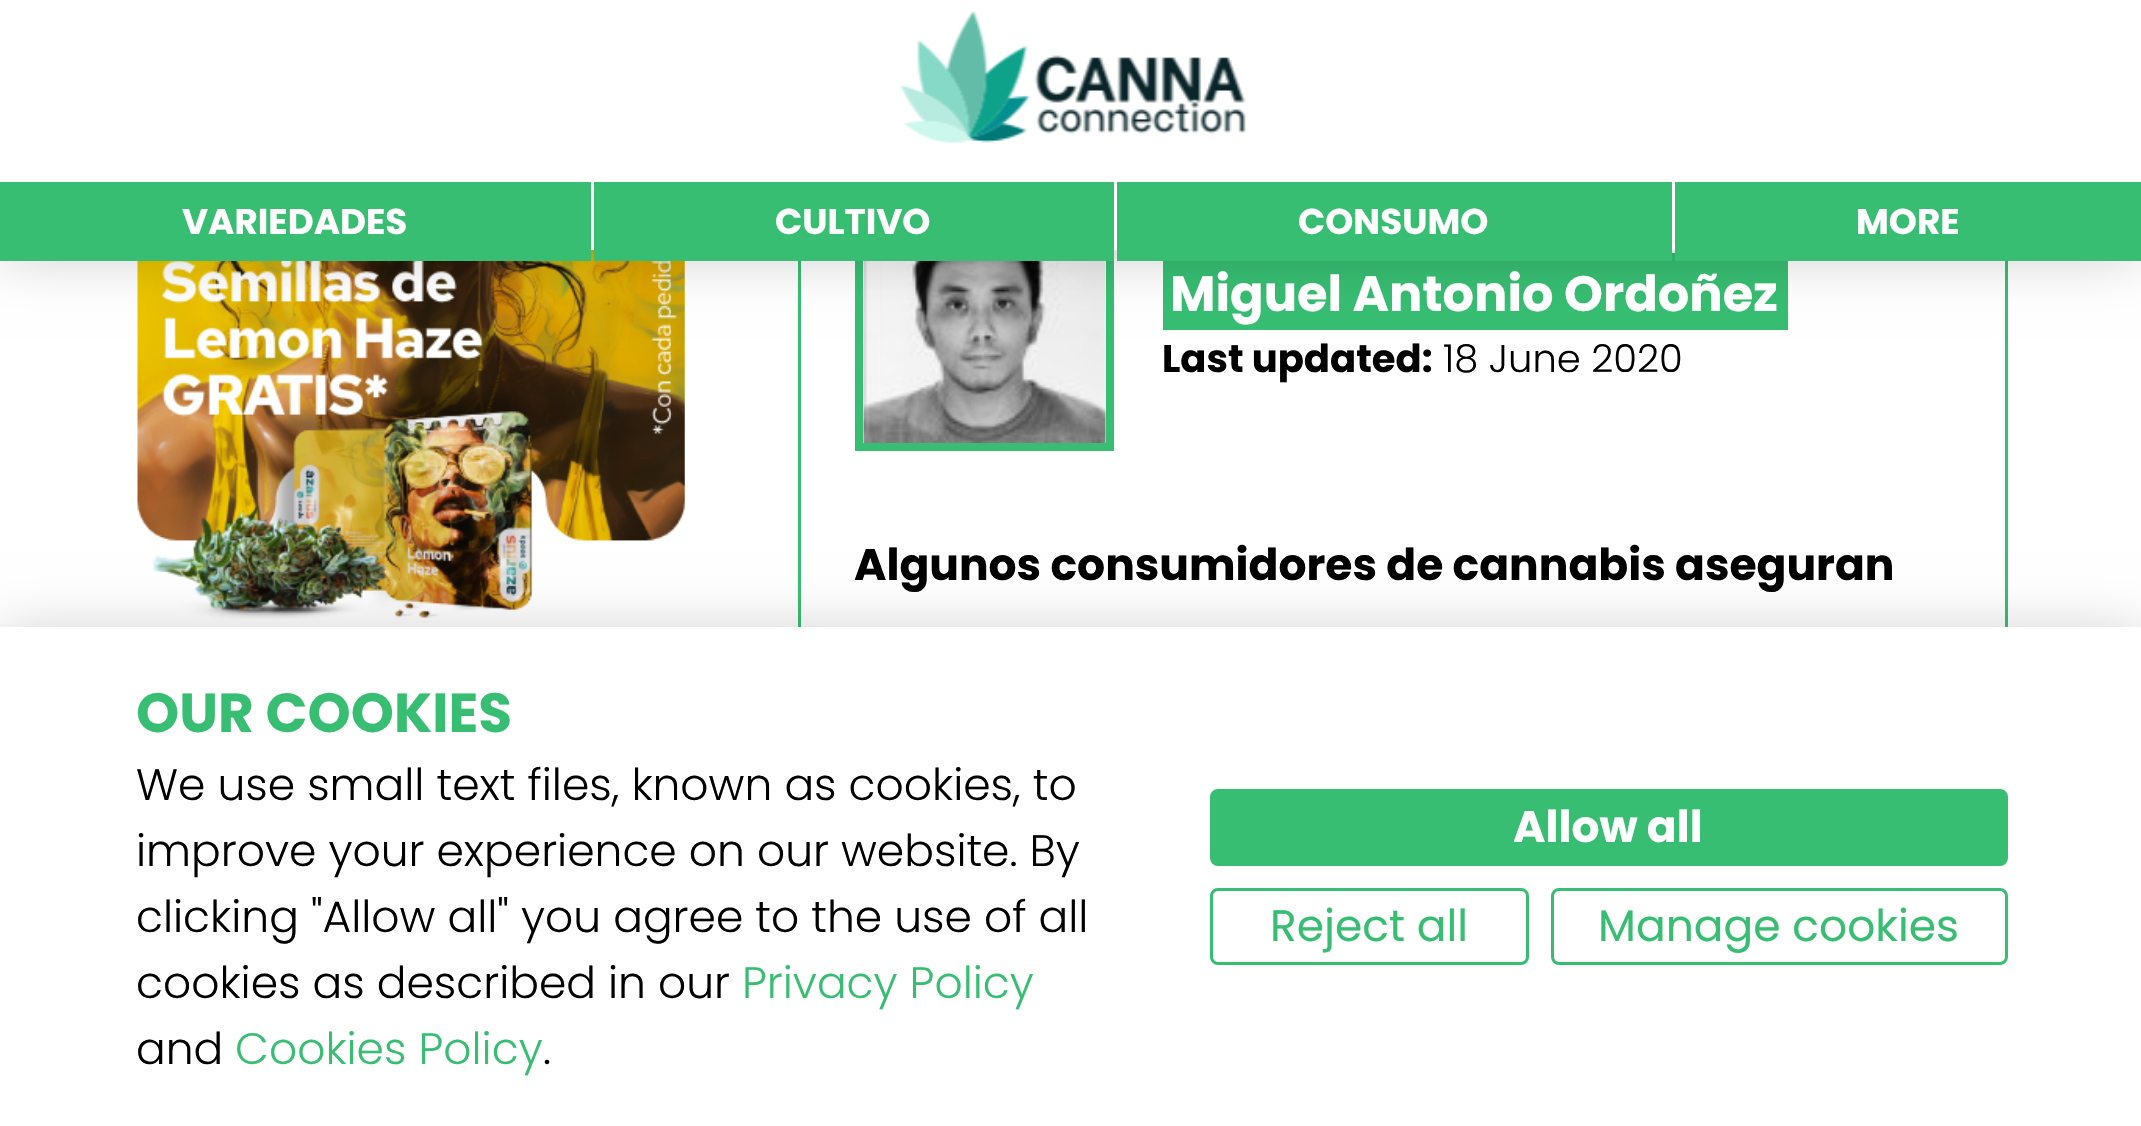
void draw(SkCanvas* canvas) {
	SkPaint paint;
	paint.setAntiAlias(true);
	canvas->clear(0xffffffff);
	canvas->drawImageRect(SkImages::DeferredFromEncodedData(SkData::MakeFromFileName("img2.png")), SkRect::MakeXYWH(137, 250, 548, 369), SkSamplingOptions());
	paint.setStroke(true);
	paint.setStrokeWidth(3);
	paint.setColor(0xff37be72);
	canvas->drawRect(SkRect::MakeXYWH(799.5, -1.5, 1207, 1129), paint);
	paint.setStrokeWidth(8);
	canvas->drawRect(SkRect::MakeXYWH(859, 197, 251, 250), paint);
	canvas->drawImageRect(SkImages::DeferredFromEncodedData(SkData::MakeFromFileName("img3.png")), SkRect::MakeXYWH(863, 261, 243, 182), SkSamplingOptions());
	paint.setStroke(false);
	canvas->drawRect(SkRect::MakeXYWH(1163, 253, 625, 77), paint);
	paint.setColor(0x33000000);
	paint.setMaskFilter(SkMaskFilter::MakeBlur(kNormal_SkBlurStyle, 27.5));
	canvas->drawRect(SkRect::MakeXYWH(0, 6, 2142, 250), paint);
	paint.setMaskFilter(nullptr);
	paint.setColor(0xffffffff);
	canvas->drawRect(SkRect::MakeXYWH(0, 0, 2141, 250), paint);
	canvas->drawImageRect(SkImages::DeferredFromEncodedData(SkData::MakeFromFileName("img1.png")), SkRect::MakeXYWH(900, 11, 346, 132), SkSamplingOptions());
	paint.setColor(0xff37be72);
	canvas->drawRect(SkRect::MakeXYWH(0, 182, 591, 79), paint);
	SkFont f1(fontMgr->matchFamilyStyle("Poppins", SkFontStyle::Bold()), 35.75);
	f1.setSubpixel(true);
	paint.setColor(0xffffffff);
	canvas->drawString("VARIEDADES", 182, 234, f1, paint);
	paint.setColor(0xff37be72);
	canvas->drawRect(SkRect::MakeXYWH(594, 182, 520, 79), paint);
	paint.setColor(0xffffffff);
	canvas->drawString("CULTIVO", 775, 234, f1, paint);
	paint.setColor(0xff37be72);
	canvas->drawRect(SkRect::MakeXYWH(1117, 182, 555, 79), paint);
	paint.setColor(0xffffffff);
	canvas->drawString("CONSUMO", 1298, 234, f1, paint);
	paint.setColor(0xff37be72);
	canvas->drawRect(SkRect::MakeXYWH(1675, 182, 466, 79), paint);
	paint.setColor(0xffffffff);
	canvas->drawString("MORE", 1856, 234, f1, paint);
	SkFont f2(fontMgr->matchFamilyStyle("Poppins", SkFontStyle::Bold()), 49.5);
	f2.setSubpixel(true);
	canvas->drawString("Miguel Antonio Ordoñez", 1170, 311, f2, paint);
	SkFont f3(fontMgr->matchFamilyStyle("Poppins", SkFontStyle::Bold()), 38.5);
	f3.setSubpixel(true);
	paint.setColor(0xff000000);
	canvas->drawString("Last updated:", 1162, 372, f3, paint);
	SkFont f4(fontMgr->matchFamilyStyle("Poppins", SkFontStyle(300, SkFontStyle::kNormal_Width, SkFontStyle::kUpright_Slant)), 38.5);
	f4.setSubpixel(true);
	canvas->drawString("18 June 2020", 1443, 372, f4, paint);
	SkFont f5(fontMgr->matchFamilyStyle("Poppins", SkFontStyle::Bold()), 44);
	f5.setSubpixel(true);
	canvas->drawString("Algunos consumidores de cannabis aseguran", 854, 580, f5, paint);
	paint.setColor(0x33000000);
	paint.setMaskFilter(SkMaskFilter::MakeBlur(kNormal_SkBlurStyle, 27.5));
	canvas->drawRect(SkRect::MakeXYWH(0, 633, 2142, 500), paint);
	paint.setMaskFilter(nullptr);
	paint.setColor(0xffffffff);
	canvas->drawRect(SkRect::MakeXYWH(0, 627, 2141, 499), paint);
	SkFont f6(fontMgr->matchFamilyStyle("Poppins", SkFontStyle::Bold()), 55);
	f6.setSubpixel(true);
	paint.setColor(0xff37be72);
	canvas->drawString("OUR COOKIES", 136, 732, f6, paint);
	SkFont f7(fontMgr->matchFamilyStyle("Poppins", SkFontStyle(300, SkFontStyle::kNormal_Width, SkFontStyle::kUpright_Slant)), 44);
	f7.setSubpixel(true);
	paint.setColor(0xff000000);
	canvas->drawString("We use small text files, known as cookies, to", 136, 800, f7, paint);
	canvas->drawString("improve your experience on our website. By", 136, 866, f7, paint);
	canvas->drawString("clicking \"Allow all\" you agree to the use of all", 136, 932, f7, paint);
	canvas->drawString("cookies as described in our", 136, 998, f7, paint);
	paint.setColor(0xff37be72);
	canvas->drawString("Privacy Policy", 742, 998, f7, paint);
	paint.setColor(0xff000000);
	canvas->drawString("and", 136, 1064, f7, paint);
	paint.setColor(0xff37be72);
	canvas->drawString("Cookies Policy", 235, 1064, f7, paint);
	paint.setColor(0xff000000);
	canvas->drawString(".", 543, 1064, f7, paint);
	paint.setColor(0xff37be72);
	canvas->drawRoundRect(SkRect::MakeXYWH(1211.5, 790.5, 795, 74), 6.5, 6.5, paint);
	paint.setStroke(true);
	paint.setStrokeWidth(3);
	canvas->drawRoundRect(SkRect::MakeXYWH(1211.5, 790.5, 795, 74), 6.5, 6.5, paint);
	paint.setStroke(false);
	paint.setColor(0xffffffff);
	canvas->drawString("Allow all", 1513, 842, f5, paint);
	paint.setStroke(true);
	paint.setColor(0xff37be72);
	canvas->drawRoundRect(SkRect::MakeXYWH(1211.5, 889.5, 316, 74), 6.5, 6.5, paint);
	SkFont f8(fontMgr->matchFamilyStyle("Poppins", SkFontStyle::Normal()), 44);
	f8.setSubpixel(true);
	paint.setStroke(false);
	canvas->drawString("Reject all", 1270, 941, f8, paint);
	paint.setStroke(true);
	canvas->drawRoundRect(SkRect::MakeXYWH(1552.5, 889.5, 454, 74), 6.5, 6.5, paint);
	paint.setStroke(false);
	canvas->drawString("Manage cookies", 1598, 941, f8, paint);
}
